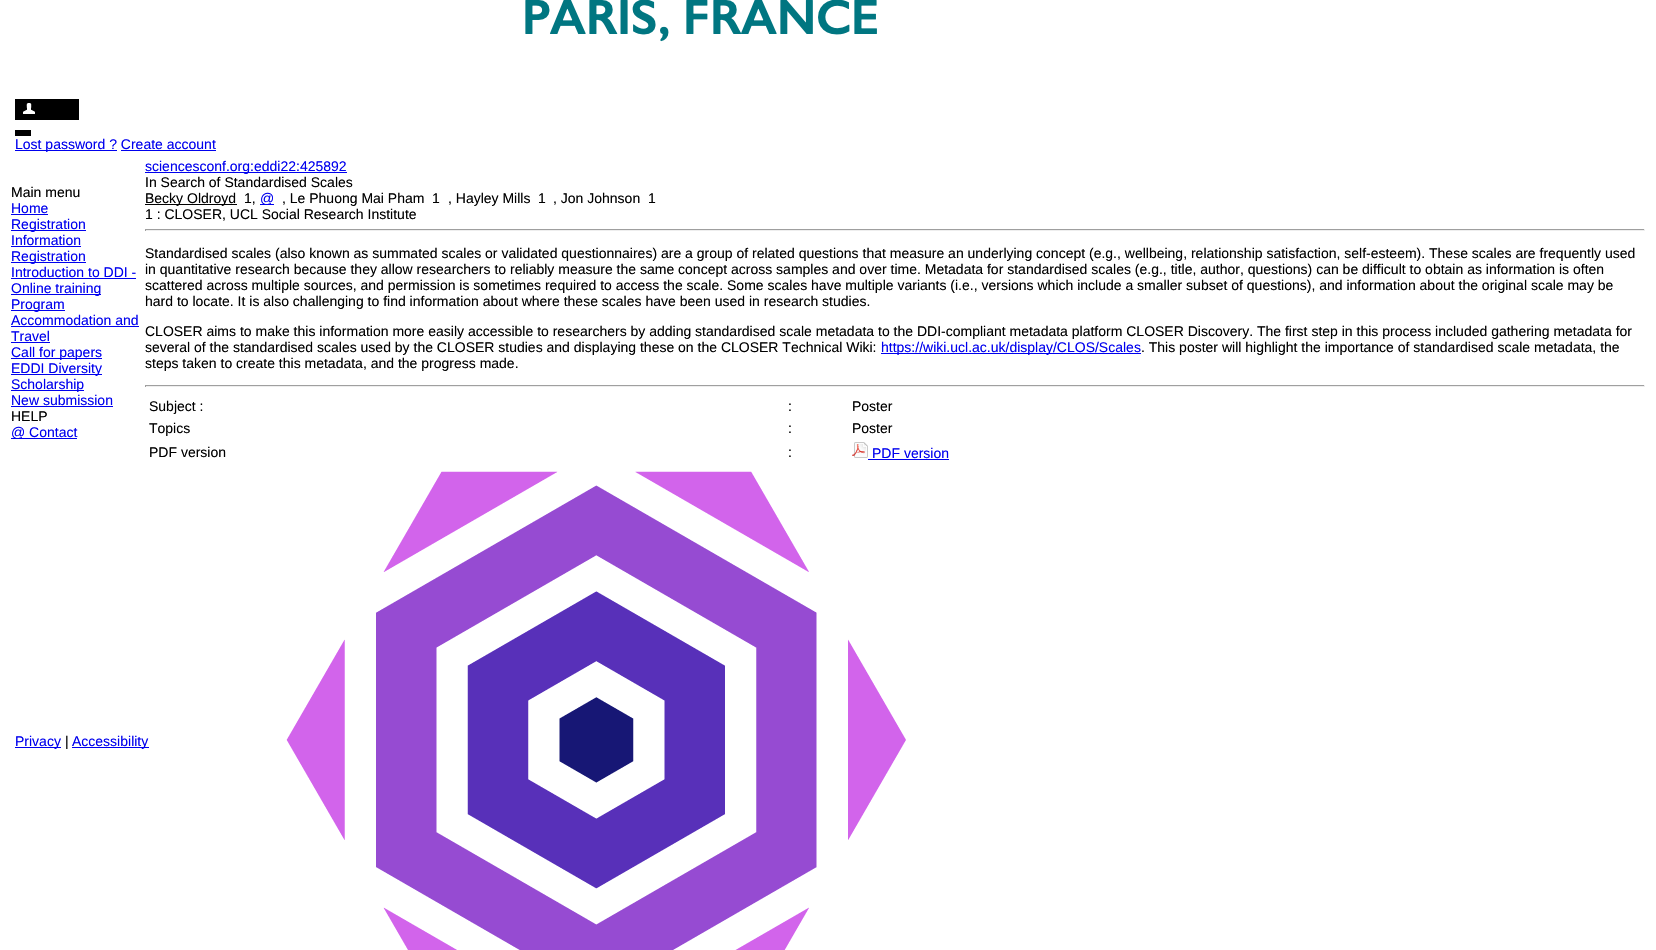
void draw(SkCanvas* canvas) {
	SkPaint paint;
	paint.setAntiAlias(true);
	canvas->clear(0xffffffff);
	canvas->drawImageRect(SkImages::DeferredFromEncodedData(SkData::MakeFromFileName("img1.png")), SkRect::MakeXYWH(525, 0, 352, 42), SkSamplingOptions());
	paint.setColor(0xff000000);
	canvas->drawRect(SkRect::MakeXYWH(15, 99, 64, 21), paint);
	canvas->drawImageRect(SkImages::DeferredFromEncodedData(SkData::MakeFromFileName("img2.png")), SkRect::MakeXYWH(23, 103, 12, 11), SkSamplingOptions());
	canvas->drawRect(SkRect::MakeXYWH(15, 130, 16, 6), paint);
	paint.setColor(0xff0000ee);
	canvas->drawRect(SkRect::MakeXYWH(15, 150, 102, 1), paint);
	SkFont f1(fontMgr->matchFamilyStyle("Liberation Sans", SkFontStyle::Normal()), 14);
	f1.setSubpixel(true);
	canvas->drawString("Lost password ? Create account", 15, 149, f1, paint);
	canvas->drawRect(SkRect::MakeXYWH(121, 150, 95, 1), paint);
	paint.setColor(0xff000000);
	canvas->drawString("Main menu", 11, 197, f1, paint);
	paint.setColor(0xff0000ee);
	canvas->drawString("Home", 11, 213, f1, paint);
	canvas->drawRect(SkRect::MakeXYWH(11, 214, 37, 1), paint);
	canvas->drawRect(SkRect::MakeXYWH(11, 230, 75, 1), paint);
	canvas->drawString("Registration", 11, 229, f1, paint);
	canvas->drawString("Information", 11, 245, f1, paint);
	canvas->drawRect(SkRect::MakeXYWH(11, 246, 70, 1), paint);
	canvas->drawRect(SkRect::MakeXYWH(11, 262, 75, 1), paint);
	canvas->drawString("Registration", 11, 261, f1, paint);
	canvas->drawString("Introduction to DDI -", 11, 277, f1, paint);
	canvas->drawRect(SkRect::MakeXYWH(11, 278, 125, 1), paint);
	canvas->drawRect(SkRect::MakeXYWH(11, 294, 90, 1), paint);
	canvas->drawString("Online training", 11, 293, f1, paint);
	canvas->drawRect(SkRect::MakeXYWH(11, 310, 54, 1), paint);
	canvas->drawString("Program", 11, 309, f1, paint);
	canvas->drawString("Accommodation and", 11, 325, f1, paint);
	canvas->drawRect(SkRect::MakeXYWH(11, 326, 128, 1), paint);
	canvas->drawString("Travel", 11, 341, f1, paint);
	canvas->drawRect(SkRect::MakeXYWH(11, 342, 39, 1), paint);
	canvas->drawRect(SkRect::MakeXYWH(11, 358, 91, 1), paint);
	canvas->drawString("Call for papers", 11, 357, f1, paint);
	canvas->drawRect(SkRect::MakeXYWH(11, 374, 91, 1), paint);
	canvas->drawString("EDDI Diversity", 11, 373, f1, paint);
	canvas->drawRect(SkRect::MakeXYWH(11, 390, 73, 1), paint);
	canvas->drawString("Scholarship", 11, 389, f1, paint);
	canvas->drawString("New submission", 11, 405, f1, paint);
	canvas->drawRect(SkRect::MakeXYWH(11, 406, 102, 1), paint);
	paint.setColor(0xff000000);
	canvas->drawString("HELP", 11, 421, f1, paint);
	paint.setColor(0xff0000ee);
	canvas->drawRect(SkRect::MakeXYWH(11, 438, 66, 1), paint);
	canvas->drawString("@ Contact", 11, 437, f1, paint);
	canvas->drawRect(SkRect::MakeXYWH(145, 172, 202, 1), paint);
	canvas->drawString("sciencesconf.org:eddi22:425892", 145, 171, f1, paint);
	paint.setColor(0xff000000);
	canvas->drawString("In Search of Standardised Scales", 145, 187, f1, paint);
	canvas->drawRect(SkRect::MakeXYWH(145, 204, 92, 1), paint);
	canvas->drawString("Becky Oldroyd", 145, 203, f1, paint);
	canvas->drawString("1,", 244, 203, f1, paint);
	paint.setColor(0xff0000ee);
	canvas->drawRect(SkRect::MakeXYWH(260, 204, 14, 1), paint);
	canvas->drawString("@", 260, 203, f1, paint);
	paint.setColor(0xff000000);
	canvas->drawString(", Le Phuong Mai Pham", 282, 203, f1, paint);
	canvas->drawString("1", 432, 203, f1, paint);
	canvas->drawString(", Hayley Mills", 448, 203, f1, paint);
	canvas->drawString("1", 538, 203, f1, paint);
	canvas->drawString(", Jon Johnson", 553, 203, f1, paint);
	canvas->drawString("1", 648, 203, f1, paint);
	canvas->drawString("1 : CLOSER, UCL Social Research Institute", 145, 219, f1, paint);
	paint.setColor(0xff9f9f9f);
	canvas->drawRect(SkRect::MakeXYWH(145, 229, 1500, 1), paint);
	paint.setColor(0xffeeeeee);
	canvas->drawRect(SkRect::MakeXYWH(1644, 229, 1, 2), paint);
	canvas->drawRect(SkRect::MakeXYWH(145, 230, 1500, 1), paint);
	paint.setColor(0xff9f9f9f);
	canvas->drawRect(SkRect::MakeXYWH(145, 229, 1, 2), paint);
	paint.setColor(0xff000000);
	canvas->drawString("Standardised scales (also known as summated scales or validated questionnaires) are a group of related questions that measure an underlying concept (e.g., wellbeing, relationship satisfaction, self-esteem). These scales are frequently used", 145, 258, f1, paint);
	canvas->drawString("in quantitative research because they allow researchers to reliably measure the same concept across samples and over time. Metadata for standardised scales (e.g., title, author, questions) can be difficult to obtain as information is often", 145, 274, f1, paint);
	canvas->drawString("scattered across multiple sources, and permission is sometimes required to access the scale. Some scales have multiple variants (i.e., versions which include a smaller subset of questions), and information about the original scale may be", 145, 290, f1, paint);
	canvas->drawString("hard to locate. It is also challenging to find information about where these scales have been used in research studies.", 145, 306, f1, paint);
	canvas->drawString("CLOSER aims to make this information more easily accessible to researchers by adding standardised scale metadata to the DDI-compliant metadata platform CLOSER Discovery. The first step in this process included gathering metadata for", 145, 336, f1, paint);
	canvas->drawString("several of the standardised scales used by the CLOSER studies and displaying these on the CLOSER Technical Wiki:", 145, 352, f1, paint);
	paint.setColor(0xff0000ee);
	canvas->drawRect(SkRect::MakeXYWH(881, 353, 260, 1), paint);
	canvas->drawString("https://wiki.ucl.ac.uk/display/CLOS/Scales", 881, 352, f1, paint);
	paint.setColor(0xff000000);
	canvas->drawString(". This poster will highlight the importance of standardised scale metadata, the", 1141, 352, f1, paint);
	canvas->drawString("steps taken to create this metadata, and the progress made.", 145, 368, f1, paint);
	paint.setColor(0xff9f9f9f);
	canvas->drawRect(SkRect::MakeXYWH(145, 385, 1500, 1), paint);
	paint.setColor(0xffeeeeee);
	canvas->drawRect(SkRect::MakeXYWH(1644, 385, 1, 2), paint);
	canvas->drawRect(SkRect::MakeXYWH(145, 386, 1500, 1), paint);
	paint.setColor(0xff9f9f9f);
	canvas->drawRect(SkRect::MakeXYWH(145, 385, 1, 2), paint);
	paint.setColor(0xff000000);
	canvas->drawString("Subject :", 149, 411, f1, paint);
	canvas->drawString(":", 788, 411, f1, paint);
	canvas->drawString("Poster", 852, 411, f1, paint);
	canvas->drawString("Topics", 149, 433, f1, paint);
	canvas->drawString(":", 788, 433, f1, paint);
	canvas->drawString("Poster", 852, 433, f1, paint);
	canvas->drawString("PDF version", 149, 457, f1, paint);
	canvas->drawString(":", 788, 457, f1, paint);
	canvas->drawImageRect(SkImages::DeferredFromEncodedData(SkData::MakeFromFileName("img3.png")), SkRect::MakeXYWH(852, 442, 16, 16), SkSamplingOptions());
	paint.setColor(0xff0000ee);
	canvas->drawString("PDF version", 872, 458, f1, paint);
	canvas->drawRect(SkRect::MakeXYWH(868, 459, 81, 1), paint);
	canvas->drawRect(SkRect::MakeXYWH(15, 747, 46, 1), paint);
	canvas->drawString("Privacy", 15, 746, f1, paint);
	paint.setColor(0xff000000);
	canvas->drawString("|", 65, 746, f1, paint);
	paint.setColor(0xff0000ee);
	canvas->drawRect(SkRect::MakeXYWH(72, 747, 77, 1), paint);
	canvas->drawString("Accessibility", 72, 746, f1, paint);
	canvas->drawImageRect(SkImages::DeferredFromEncodedData(SkData::MakeFromFileName("img4.png")), SkRect::MakeXYWH(286, 471, 620, 479), SkSamplingOptions());
}
